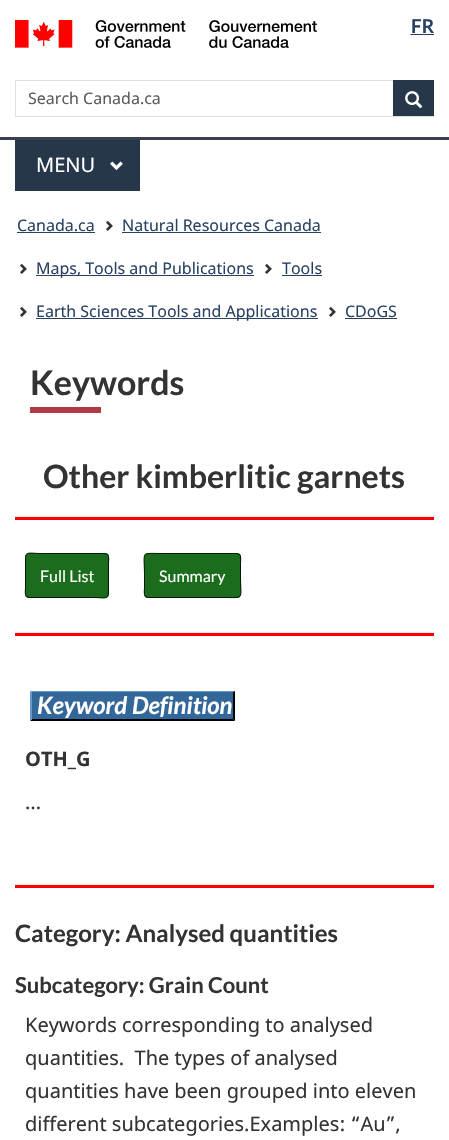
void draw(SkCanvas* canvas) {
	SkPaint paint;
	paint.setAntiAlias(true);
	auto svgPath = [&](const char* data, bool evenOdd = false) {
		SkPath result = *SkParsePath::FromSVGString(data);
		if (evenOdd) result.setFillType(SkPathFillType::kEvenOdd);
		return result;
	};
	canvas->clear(0xffffffff);
	canvas->drawImageRect(SkImages::DeferredFromEncodedData(SkData::MakeFromFileName("img1.png")), SkRect::MakeXYWH(15, 20, 302, 28), SkSamplingOptions());
	SkFont f1(fontMgr->matchFamilyStyle("Lato", SkFontStyle::Bold()), 19);
	f1.setSubpixel(true);
	paint.setColor(0xff284162);
	canvas->drawString("FR", 411, 33, f1, paint);
	paint.setStroke(true);
	paint.setStrokeWidth(1);
	paint.setPathEffect(SkDashPathEffect::Make({{1, 1}}, 0));
	canvas->drawPath(svgPath("M410.5 34.5H434"), paint);
	paint.setPathEffect(nullptr);
	paint.setStroke(false);
	canvas->drawRect(SkRect::MakeXYWH(411, 34, 23, 1), paint);
	paint.setStroke(true);
	paint.setColor(0xffe0e0e0);
	canvas->drawRect(SkRect::MakeXYWH(15.5, 80.5, 418, 36), paint);
	SkFont f2(fontMgr->matchFamilyStyle("Noto Sans", SkFontStyle::Normal()), 16);
	f2.setSubpixel(true);
	paint.setStroke(false);
	paint.setColor(0xff5c5c5c);
	canvas->drawString("Search Canada.ca", 28, 104, f2, paint);
	paint.setColor(0xff26374a);
	canvas->drawRect(SkRect::MakeXYWH(393, 80, 41, 36), paint);
	canvas->drawImageRect(SkImages::DeferredFromEncodedData(SkData::MakeFromFileName("img2.png")), SkRect::MakeXYWH(405, 91, 18, 18), SkSamplingOptions());
	paint.setColor(0xff38414d);
	canvas->drawRect(SkRect::MakeXYWH(0, 137, 449, 3), paint);
	paint.setColor(0xff26374a);
	canvas->drawRect(SkRect::MakeXYWH(15, 140, 125, 51), paint);
	SkFont f3(fontMgr->matchFamilyStyle("Noto Sans", SkFontStyle::Normal()), 20);
	f3.setSubpixel(true);
	paint.setColor(0xffffffff);
	canvas->drawString("MENU", 36, 172, f3, paint);
	canvas->drawImageRect(SkImages::DeferredFromEncodedData(SkData::MakeFromFileName("img3.png")), SkRect::MakeXYWH(110, 161, 13, 10), SkSamplingOptions());
	paint.setColor(0xff284162);
	canvas->drawString("Canada.ca", 17, 231, f2, paint);
	canvas->drawRect(SkRect::MakeXYWH(17, 232, 78, 1), paint);
	canvas->drawImageRect(SkImages::DeferredFromEncodedData(SkData::MakeFromFileName("img4.png")), SkRect::MakeXYWH(106, 220, 7, 11), SkSamplingOptions());
	canvas->drawString("Natural Resources Canada", 122, 231, f2, paint);
	canvas->drawRect(SkRect::MakeXYWH(122, 232, 199, 1), paint);
	canvas->drawImageRect(SkImages::DeferredFromEncodedData(SkData::MakeFromFileName("img4.png")), SkRect::MakeXYWH(20, 263, 7, 11), SkSamplingOptions());
	canvas->drawRect(SkRect::MakeXYWH(36, 275, 218, 1), paint);
	canvas->drawString("Maps, Tools and Publications", 36, 274, f2, paint);
	canvas->drawImageRect(SkImages::DeferredFromEncodedData(SkData::MakeFromFileName("img4.png")), SkRect::MakeXYWH(265, 263, 7, 11), SkSamplingOptions());
	canvas->drawString("Tools", 282, 274, f2, paint);
	canvas->drawRect(SkRect::MakeXYWH(282, 275, 40, 1), paint);
	canvas->drawImageRect(SkImages::DeferredFromEncodedData(SkData::MakeFromFileName("img4.png")), SkRect::MakeXYWH(20, 306, 7, 11), SkSamplingOptions());
	canvas->drawRect(SkRect::MakeXYWH(36, 318, 282, 1), paint);
	canvas->drawString("Earth Sciences Tools and Applications", 36, 317, f2, paint);
	canvas->drawImageRect(SkImages::DeferredFromEncodedData(SkData::MakeFromFileName("img4.png")), SkRect::MakeXYWH(329, 306, 7, 11), SkSamplingOptions());
	canvas->drawString("CDoGS", 345, 317, f2, paint);
	canvas->drawRect(SkRect::MakeXYWH(345, 318, 52, 1), paint);
	paint.setStroke(true);
	paint.setColor(0xff333333);
	paint.setPathEffect(SkDashPathEffect::Make({{1, 1}}, 0));
	canvas->drawPath(svgPath("M345 318.5H397"), paint);
	paint.setPathEffect(nullptr);
	paint.setStroke(false);
	paint.setColor(0xffaf3c43);
	canvas->drawRect(SkRect::MakeXYWH(30, 407, 71, 6), paint);
	SkFont f4(fontMgr->matchFamilyStyle("Lato", SkFontStyle::Bold()), 34);
	f4.setSubpixel(true);
	paint.setColor(0xff333333);
	canvas->drawString("Keywords", 30, 395, f4, paint);
	SkFont f5(fontMgr->matchFamilyStyle("Lato", SkFontStyle::Bold()), 32);
	f5.setSubpixel(true);
	canvas->drawString("Other kimberlitic garnets", 43, 488, f5, paint);
	paint.setColor(0xffff0000);
	canvas->drawRect(SkRect::MakeXYWH(15, 517, 419, 3), paint);
	paint.setColor(0xffeeeeee);
	canvas->drawRect(SkRect::MakeXYWH(15, 516, 419, 1), paint);
	paint.setColor(0xff1b6c1c);
	canvas->drawRoundRect(SkRect::MakeXYWH(25, 553, 84, 45), 4, 4, paint);
	paint.setStroke(true);
	paint.setColor(0xff051105);
	canvas->drawPath(svgPath("M107.5 554.5C109.5 556.5 108.5 561.5 108.5 563V588C108.5 601 107 597.5 92.5 597.5H29L26.5 596.5"), paint);
	paint.setColor(0xff071a07);
	canvas->drawPath(svgPath("M26.5 596.5C24.5 594.5 25.5 589.5 25.5 588V563C25.5 550 27 553.5 41.5 553.5H105L107.5 554.5"), paint);
	SkFont f6(fontMgr->matchFamilyStyle("Lato", SkFontStyle::Normal()), 16);
	f6.setSubpixel(true);
	paint.setStroke(false);
	paint.setColor(0xffffffff);
	canvas->drawString("Full List", 40, 582, f6, paint);
	paint.setColor(0xff1b6c1c);
	canvas->drawRoundRect(SkRect::MakeXYWH(144, 553, 97, 45), 4, 4, paint);
	paint.setStroke(true);
	paint.setColor(0xff051105);
	canvas->drawPath(svgPath("M239.5 554.5C241.5 556.5 240.5 561.5 240.5 563V575.5C240.5 600.5 245.5 597.5 222 597.5H148L145.5 596.5"), paint);
	paint.setColor(0xff071a07);
	canvas->drawPath(svgPath("M145.5 596.5C143.5 594.5 144.5 589.5 144.5 588V575.5C144.5 550.5 139.5 553.5 163 553.5H237L239.5 554.5"), paint);
	paint.setStroke(false);
	paint.setColor(0xffffffff);
	canvas->drawString("Summary", 159, 582, f6, paint);
	paint.setColor(0xffff0000);
	canvas->drawRect(SkRect::MakeXYWH(15, 633, 419, 3), paint);
	paint.setColor(0xffeeeeee);
	canvas->drawRect(SkRect::MakeXYWH(15, 632, 419, 1), paint);
	paint.setColor(0xff336699);
	canvas->drawRect(SkRect::MakeXYWH(32, 692, 201, 27), paint);
	paint.setColor(0xff6699cc);
	canvas->drawPath(svgPath("M30 691H235L233 692H32Z"), paint);
	paint.setColor(0xff000000);
	canvas->drawPath(svgPath("M235 691V721L233 719V692Z"), paint);
	canvas->drawPath(svgPath("M235 721H30L32 719H233Z"), paint);
	paint.setColor(0xff6699cc);
	canvas->drawPath(svgPath("M30 721V691L32 692V719Z"), paint);
	SkFont f7(fontMgr->matchFamilyStyle("Lato", SkFontStyle::BoldItalic()), 24);
	f7.setSubpixel(true);
	paint.setColor(0xffffffff);
	canvas->drawString("Keyword Definition", 37, 714, f7, paint);
	SkFont f8(fontMgr->matchFamilyStyle("Noto Sans", SkFontStyle::Bold()), 20);
	f8.setSubpixel(true);
	paint.setColor(0xff333333);
	canvas->drawString("OTH_G", 25, 766, f8, paint);
	canvas->drawString("…", 25, 809, f3, paint);
	paint.setColor(0xffff0000);
	canvas->drawRect(SkRect::MakeXYWH(15, 885, 419, 3), paint);
	paint.setColor(0xffeeeeee);
	canvas->drawRect(SkRect::MakeXYWH(15, 884, 419, 1), paint);
	SkFont f9(fontMgr->matchFamilyStyle("Lato", SkFontStyle::Bold()), 24);
	f9.setSubpixel(true);
	paint.setColor(0xff333333);
	canvas->drawString("Category: Analysed quantities", 15, 942, f9, paint);
	SkFont f10(fontMgr->matchFamilyStyle("Lato", SkFontStyle::Bold()), 22);
	f10.setSubpixel(true);
	canvas->drawString("Subcategory: Grain Count", 15, 993, f10, paint);
	canvas->drawString("Keywords corresponding to analysed", 25, 1032, f3, paint);
	canvas->drawString("quantities.  The types of analysed", 25, 1065, f3, paint);
	canvas->drawString("quantities have been grouped into eleven", 25, 1098, f3, paint);
	canvas->drawString("different subcategories.Examples: “Au”,", 25, 1131, f3, paint);
}
